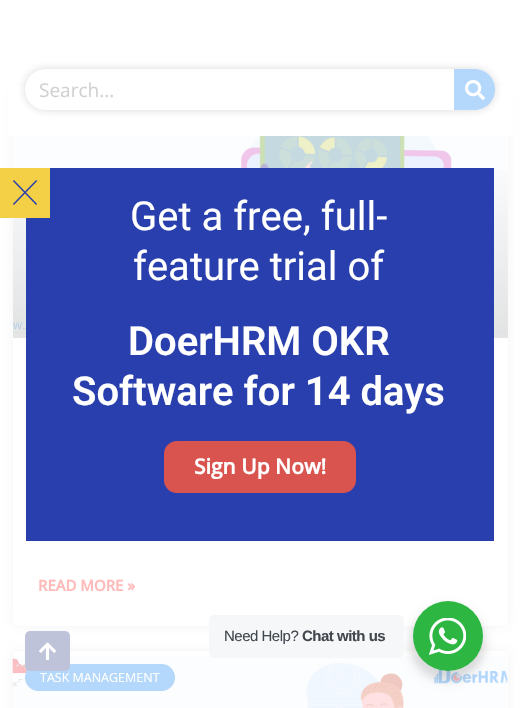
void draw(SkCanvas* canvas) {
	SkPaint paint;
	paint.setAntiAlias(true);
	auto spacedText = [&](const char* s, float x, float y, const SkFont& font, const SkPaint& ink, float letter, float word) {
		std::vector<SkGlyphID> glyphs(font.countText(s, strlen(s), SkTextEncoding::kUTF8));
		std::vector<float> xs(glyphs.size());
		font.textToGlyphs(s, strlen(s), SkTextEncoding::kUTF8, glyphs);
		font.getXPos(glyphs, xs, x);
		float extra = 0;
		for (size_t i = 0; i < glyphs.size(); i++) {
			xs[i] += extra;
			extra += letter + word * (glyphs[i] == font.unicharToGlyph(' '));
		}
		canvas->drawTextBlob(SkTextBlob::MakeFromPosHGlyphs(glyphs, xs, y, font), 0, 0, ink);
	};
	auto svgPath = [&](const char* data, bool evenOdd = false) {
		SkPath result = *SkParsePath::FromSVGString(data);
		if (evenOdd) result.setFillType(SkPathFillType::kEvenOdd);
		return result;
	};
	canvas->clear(0xffffffff);
	paint.setColor(0x26b3b3b3);
	paint.setMaskFilter(SkMaskFilter::MakeBlur(kNormal_SkBlurStyle, 6));
	canvas->drawRoundRect(SkRect::MakeXYWH(13, 90, 495, 536), 4, 4, paint);
	paint.setMaskFilter(nullptr);
	paint.setColor(0xffffffff);
	canvas->drawRoundRect(SkRect::MakeXYWH(13, 90, 495, 536), 4, 4, paint);
	canvas->drawRect(SkRect::MakeXYWH(8, 85, 505, 51), paint);
	paint.setColor(0x80b3b3b3);
	paint.setMaskFilter(SkMaskFilter::MakeBlur(kNormal_SkBlurStyle, 4));
	canvas->drawRoundRect(SkRect::MakeXYWH(25, 69, 470, 41), 20.5, 20.5, paint);
	paint.setMaskFilter(nullptr);
	paint.setColor(0xffffffff);
	canvas->drawRoundRect(SkRect::MakeXYWH(25, 69, 470, 41), 20.5, 20.5, paint);
	SkFont f1(fontMgr->matchFamilyStyle("Open Sans", SkFontStyle::Normal()), 19);
	f1.setSubpixel(true);
	paint.setColor(0xffd1d1d1);
	canvas->drawString("Search...", 39, 97, f1, paint);
	paint.setColor(0xffb4d7fc);
	canvas->drawPath(svgPath("M454 69H474.5C486 69 495 78 495 89.5C495 101 486 110 474.5 110H454Z"), paint);
	canvas->drawImageRect(SkImages::DeferredFromEncodedData(SkData::MakeFromFileName("img1.png")), SkRect::MakeXYWH(465, 80, 20, 20), SkSamplingOptions());
	canvas->drawImageRect(SkImages::DeferredFromEncodedData(SkData::MakeFromFileName("img2.png")), SkRect::MakeXYWH(12, 136, 496, 198), SkSamplingOptions());
	{
		const SkColor colors[] = {0x59b3b3b3, 0x00b3b3b3};
		const float stops[] = {0, 0.75};
		const SkPoint ends[] = {{260, 338}, {260, 90}};
		paint.setShader(SkGradientShader::MakeLinear(ends, colors, stops, 2, SkTileMode::kClamp));
		paint.setAlpha(255);
	}
	canvas->drawRect(SkRect::MakeXYWH(13, 170, 495, 168), paint);
	SkFont f2(fontMgr->matchFamilyStyle("Open Sans", SkFontStyle::Bold()), 15);
	f2.setSubpixel(true);
	paint.setShader(nullptr);
	paint.setColor(0xffffbaba);
	canvas->drawString("READ MORE »", 38, 591, f2, paint);
	paint.setColor(0x26b3b3b3);
	paint.setMaskFilter(SkMaskFilter::MakeBlur(kNormal_SkBlurStyle, 6));
	canvas->drawRoundRect(SkRect::MakeXYWH(13, 651, 495, 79), 4, 4, paint);
	paint.setMaskFilter(nullptr);
	paint.setColor(0xffffffff);
	canvas->drawRoundRect(SkRect::MakeXYWH(13, 651, 495, 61), 4, 4, paint);
	canvas->drawImageRect(SkImages::DeferredFromEncodedData(SkData::MakeFromFileName("img3.png")), SkRect::MakeXYWH(12, 656, 496, 52), SkSamplingOptions());
	paint.setColor(0xffb4d7fc);
	canvas->drawRoundRect(SkRect::MakeXYWH(25, 664, 150, 27), 13.5, 13.5, paint);
	SkFont f3(fontMgr->matchFamilyStyle("Open Sans", SkFontStyle::Normal()), 12.5);
	f3.setSubpixel(true);
	paint.setColor(0xffffffff);
	canvas->drawString("TASK MANAGEMENT", 40, 682, f3, paint);
	paint.setColor(0xffbfc3da);
	canvas->drawRoundRect(SkRect::MakeXYWH(25, 631, 45, 40), 5, 5, paint);
	canvas->drawImageRect(SkImages::DeferredFromEncodedData(SkData::MakeFromFileName("img4.png")), SkRect::MakeXYWH(39, 642, 17, 18), SkSamplingOptions());
	paint.setColor(0xff293fad);
	canvas->drawRect(SkRect::MakeXYWH(26, 168, 468, 373), paint);
	paint.setColor(0xfff3d046);
	canvas->drawRect(SkRect::MakeXYWH(0, 168, 50, 50), paint);
	canvas->drawImageRect(SkImages::DeferredFromEncodedData(SkData::MakeFromFileName("img5.png")), SkRect::MakeXYWH(13, 180, 24, 25), SkSamplingOptions());
	SkFont f4(fontMgr->matchFamilyStyle("Roboto", SkFontStyle::Normal()), 40);
	f4.setSubpixel(true);
	paint.setColor(0xffffffff);
	canvas->drawString("Get a free, full-", 130, 230, f4, paint);
	canvas->drawString("feature trial of", 133, 280, f4, paint);
	SkFont f5(fontMgr->matchFamilyStyle("Roboto", SkFontStyle(600, SkFontStyle::kNormal_Width, SkFontStyle::kUpright_Slant)), 40);
	f5.setSubpixel(true);
	canvas->drawString("DoerHRM OKR", 128, 355, f5, paint);
	canvas->drawString("Software for 14 days", 72, 405, f5, paint);
	paint.setColor(0xffd9534f);
	canvas->drawRoundRect(SkRect::MakeXYWH(164, 441, 192, 52), 13, 13, paint);
	SkFont f6(fontMgr->matchFamilyStyle("Open Sans", SkFontStyle::Bold()), 21);
	f6.setSubpixel(true);
	paint.setColor(0xffffffff);
	canvas->drawString("Sign Up Now!", 194, 474, f6, paint);
	paint.setColor(0x24000000);
	paint.setMaskFilter(SkMaskFilter::MakeBlur(kNormal_SkBlurStyle, 5));
	canvas->drawRoundRect(SkRect::MakeXYWH(410, 606, 75, 75), 37.5, 37.5, paint);
	paint.setMaskFilter(nullptr);
	paint.setColor(0xfff5f7f9);
	canvas->drawRoundRect(SkRect::MakeXYWH(209, 615, 195, 43), 5, 5, paint);
	SkFont f7(fontMgr->matchFamilyStyle("Liberation Sans", SkFontStyle::Normal()), 15);
	f7.setSubpixel(true);
	paint.setColor(0xff43474e);
	spacedText("Need Help?", 224, 641, f7, paint, -0.5, 0);
	SkFont f8(fontMgr->matchFamilyStyle("Liberation Sans", SkFontStyle::Bold()), 15);
	f8.setSubpixel(true);
	spacedText("Chat with us", 302, 641, f8, paint, -0.5, 0);
	paint.setColor(0xff2db742);
	canvas->drawCircle(448, 636, 35, paint);
	canvas->drawImageRect(SkImages::DeferredFromEncodedData(SkData::MakeFromFileName("img6.png")), SkRect::MakeXYWH(429, 618, 37, 37), SkSamplingOptions());
}
